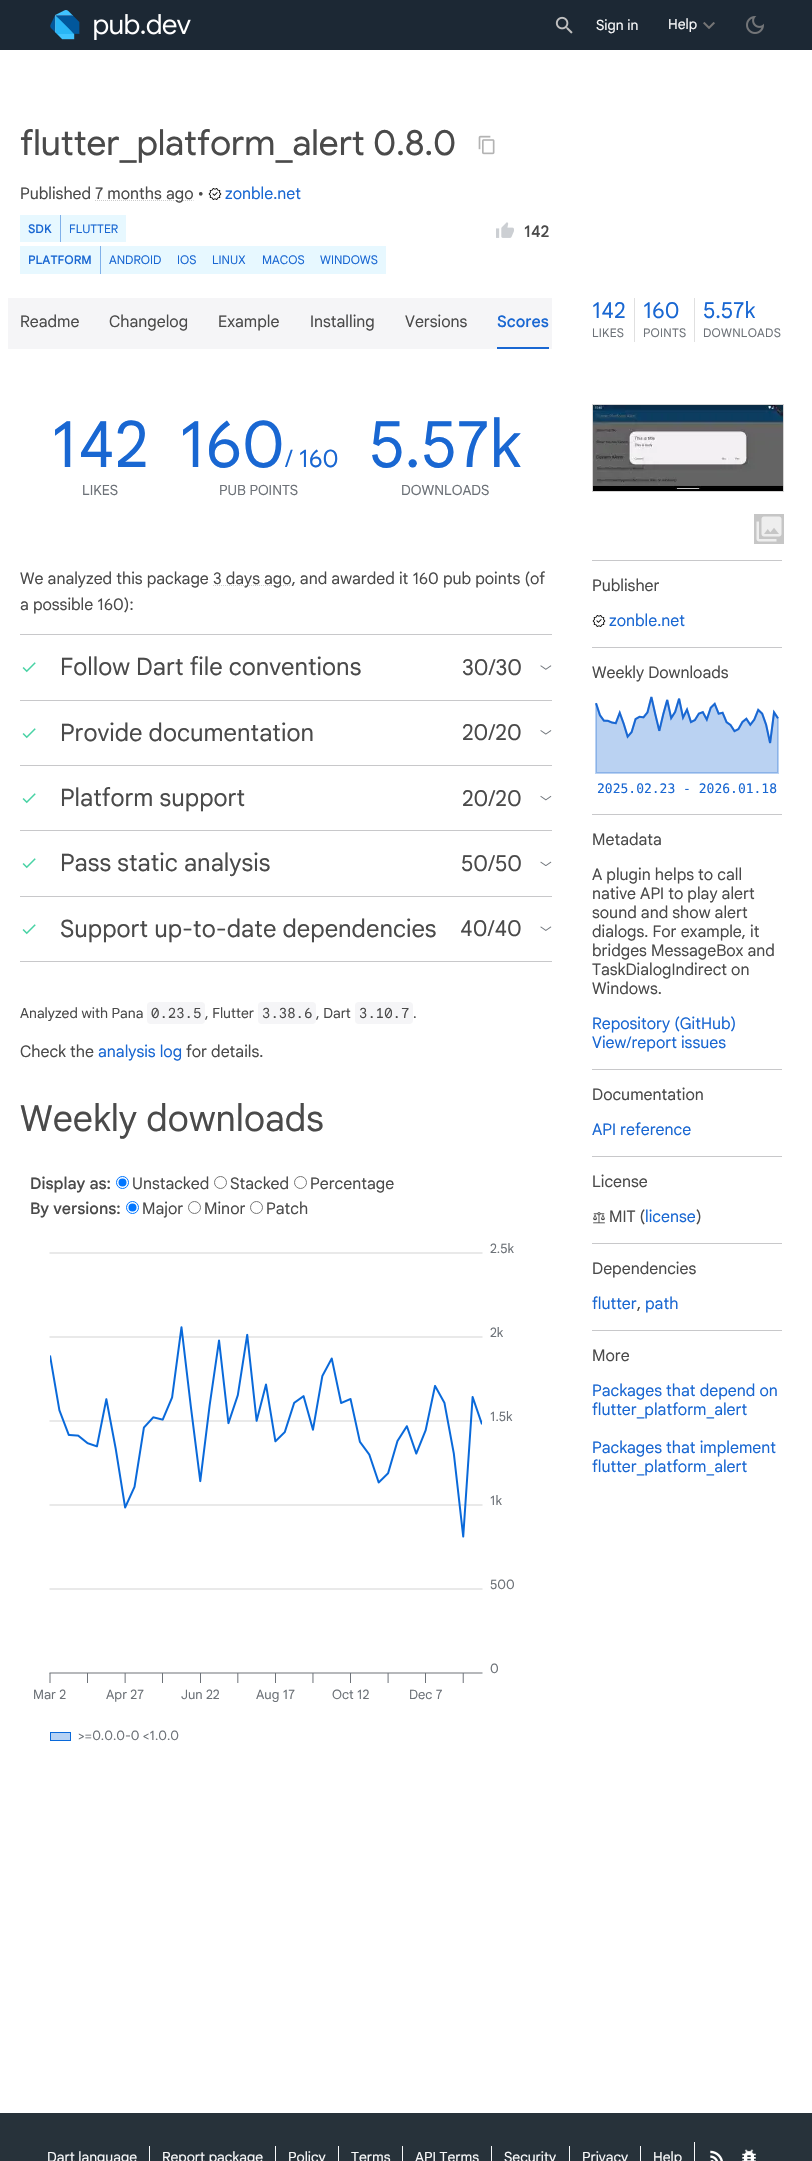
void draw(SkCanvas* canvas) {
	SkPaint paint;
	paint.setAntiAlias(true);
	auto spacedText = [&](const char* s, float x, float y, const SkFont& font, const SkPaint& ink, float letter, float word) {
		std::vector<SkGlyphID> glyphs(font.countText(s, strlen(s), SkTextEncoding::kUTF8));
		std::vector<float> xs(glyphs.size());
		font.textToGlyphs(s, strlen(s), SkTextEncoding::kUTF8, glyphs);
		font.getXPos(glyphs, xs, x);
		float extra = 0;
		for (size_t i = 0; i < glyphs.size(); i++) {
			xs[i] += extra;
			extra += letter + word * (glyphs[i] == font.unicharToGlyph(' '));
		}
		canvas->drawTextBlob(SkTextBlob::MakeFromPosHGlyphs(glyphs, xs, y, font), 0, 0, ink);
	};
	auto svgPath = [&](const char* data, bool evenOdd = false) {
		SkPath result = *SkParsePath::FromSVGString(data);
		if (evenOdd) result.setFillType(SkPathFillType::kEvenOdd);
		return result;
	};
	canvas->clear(0xffffffff);
	paint.setColor(0xff1c2834);
	canvas->drawRect(SkRect::MakeXYWH(0, 0, 812, 50), paint);
	canvas->drawImageRect(SkImages::DeferredFromEncodedData(SkData::MakeFromFileName("img1.png")), SkRect::MakeXYWH(50, 10, 141, 30), SkSamplingOptions());
	canvas->drawImageRect(SkImages::DeferredFromEncodedData(SkData::MakeFromFileName("img2.png")), SkRect::MakeXYWH(555, 16, 18, 18), SkSamplingOptions());
	SkFont f1(fontMgr->matchFamilyStyle("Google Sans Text", SkFontStyle::Normal()), 14);
	f1.setSubpixel(true);
	paint.setColor(0xfff8f9fa);
	canvas->drawString("Sign in", 596, 30, f1, paint);
	canvas->drawString("Help", 668, 29, f1, paint);
	canvas->drawImageRect(SkImages::DeferredFromEncodedData(SkData::MakeFromFileName("img3.png")), SkRect::MakeXYWH(703, 22, 12, 7), SkSamplingOptions());
	canvas->drawImageRect(SkImages::DeferredFromEncodedData(SkData::MakeFromFileName("img4.png")), SkRect::MakeXYWH(746, 16, 18, 18), SkSamplingOptions());
	SkFont f2(fontMgr->matchFamilyStyle("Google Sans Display", SkFontStyle::Normal()), 36);
	f2.setSubpixel(true);
	paint.setColor(0xff4a4a4a);
	canvas->drawString("flutter_platform_alert 0.8.0", 20, 155, f2, paint);
	canvas->drawImageRect(SkImages::DeferredFromEncodedData(SkData::MakeFromFileName("img5.png")), SkRect::MakeXYWH(478, 135, 17, 20), SkSamplingOptions());
	SkFont f3(fontMgr->matchFamilyStyle("Google Sans Text", SkFontStyle::Normal()), 16);
	f3.setSubpixel(true);
	canvas->drawString("Published", 20, 199, f3, paint);
	paint.setStroke(true);
	paint.setStrokeWidth(1);
	paint.setColor(0xffcccccc);
	paint.setPathEffect(SkDashPathEffect::Make({{1, 1}}, 0));
	canvas->drawPath(svgPath("M95 200.5H193.5"), paint);
	paint.setPathEffect(nullptr);
	paint.setStroke(false);
	paint.setColor(0xff4a4a4a);
	canvas->drawString("7 months ago •", 95, 199, f3, paint);
	canvas->drawImageRect(SkImages::DeferredFromEncodedData(SkData::MakeFromFileName("img6.png")), SkRect::MakeXYWH(208, 188, 14, 12), SkSamplingOptions());
	paint.setColor(0xff1967d2);
	canvas->drawString("zonble.net", 225, 199, f3, paint);
	paint.setColor(0xffe7f8ff);
	canvas->drawRect(SkRect::MakeXYWH(20, 215, 106, 27), paint);
	paint.setColor(0xff80b0e9);
	canvas->drawRect(SkRect::MakeXYWH(60, 215, 1, 27), paint);
	SkFont f4(fontMgr->matchFamilyStyle("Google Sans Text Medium", SkFontStyle(500, SkFontStyle::kNormal_Width, SkFontStyle::kUpright_Slant)), 12);
	f4.setSubpixel(true);
	paint.setColor(0xff1967d2);
	canvas->drawString("SDK", 28, 233, f4, paint);
	SkFont f5(fontMgr->matchFamilyStyle("Google Sans Text", SkFontStyle::Normal()), 12);
	f5.setSubpixel(true);
	canvas->drawString("FLUTTER", 69, 233, f5, paint);
	paint.setColor(0xffe7f8ff);
	canvas->drawRect(SkRect::MakeXYWH(20, 246, 366, 28), paint);
	paint.setColor(0xff80b0e9);
	canvas->drawRect(SkRect::MakeXYWH(100, 246, 1, 28), paint);
	paint.setColor(0xff1967d2);
	canvas->drawString("PLATFORM", 28, 264, f4, paint);
	canvas->drawString("ANDROID", 109, 264, f5, paint);
	canvas->drawString("IOS", 177, 264, f5, paint);
	canvas->drawString("LINUX", 212, 264, f5, paint);
	canvas->drawString("MACOS", 262, 264, f5, paint);
	canvas->drawString("WINDOWS", 320, 264, f5, paint);
	canvas->drawImageRect(SkImages::DeferredFromEncodedData(SkData::MakeFromFileName("img7.png")), SkRect::MakeXYWH(496, 222, 18, 16), SkSamplingOptions());
	SkFont f6(fontMgr->matchFamilyStyle("Google Sans Text Medium", SkFontStyle(500, SkFontStyle::kNormal_Width, SkFontStyle::kUpright_Slant)), 16);
	f6.setSubpixel(true);
	paint.setColor(0xff4a4a4a);
	canvas->drawString("142", 524, 237, f6, paint);
	paint.setColor(0xfff5f5f7);
	canvas->drawRect(SkRect::MakeXYWH(8, 298, 544, 51), paint);
	paint.setColor(0xff4a4a4a);
	canvas->drawString("Readme", 20, 327, f3, paint);
	canvas->drawString("Changelog", 109, 327, f3, paint);
	canvas->drawString("Example", 218, 327, f3, paint);
	canvas->drawString("Installing", 310, 327, f3, paint);
	canvas->drawString("Versions", 405, 327, f3, paint);
	paint.setColor(0xff1967d2);
	canvas->drawRect(SkRect::MakeXYWH(497, 347, 52, 2), paint);
	canvas->drawString("Scores", 497, 327, f6, paint);
	SkFont f7(fontMgr->matchFamilyStyle("Google Sans Text", SkFontStyle::Normal()), 64);
	f7.setSubpixel(true);
	canvas->drawString("142", 51, 467, f7, paint);
	paint.setColor(0xff6d7278);
	canvas->drawString("LIKES", 82, 495, f1, paint);
	paint.setColor(0xff1967d2);
	canvas->drawString("160", 179, 467, f7, paint);
	SkFont f8(fontMgr->matchFamilyStyle("Google Sans Text", SkFontStyle::Normal()), 24);
	f8.setSubpixel(true);
	canvas->drawString("/ 160", 285, 467, f8, paint);
	paint.setColor(0xff6d7278);
	canvas->drawString("PUB POINTS", 219, 495, f1, paint);
	paint.setColor(0xff1967d2);
	canvas->drawString("5.57k", 369, 467, f7, paint);
	paint.setColor(0xff6d7278);
	canvas->drawString("DOWNLOADS", 401, 495, f1, paint);
	paint.setColor(0xff4a4a4a);
	canvas->drawString("We analyzed this package", 20, 584, f3, paint);
	paint.setStroke(true);
	paint.setColor(0xffcccccc);
	paint.setPathEffect(SkDashPathEffect::Make({{1, 1}}, 0));
	canvas->drawPath(svgPath("M213 585.5H291.5"), paint);
	paint.setPathEffect(nullptr);
	paint.setStroke(false);
	paint.setColor(0xff4a4a4a);
	canvas->drawString("3 days ago, and awarded it 160 pub points (of", 213, 584, f3, paint);
	canvas->drawString("a possible 160):", 20, 610, f3, paint);
	paint.setColor(0xffc8c8ca);
	canvas->drawRect(SkRect::MakeXYWH(20, 961, 532, 1), paint);
	canvas->drawRect(SkRect::MakeXYWH(20, 634, 532, 1), paint);
	canvas->drawImageRect(SkImages::DeferredFromEncodedData(SkData::MakeFromFileName("img8.png")), SkRect::MakeXYWH(22, 662, 14, 11), SkSamplingOptions());
	paint.setColor(0xff4a4a4a);
	canvas->drawString("Follow Dart file conventions", 60, 675, f8, paint);
	SkFont f9(fontMgr->matchFamilyStyle("Google Sans Text", SkFontStyle::Normal()), 22);
	f9.setSubpixel(true);
	canvas->drawString("30/30", 462, 675, f9, paint);
	canvas->drawImageRect(SkImages::DeferredFromEncodedData(SkData::MakeFromFileName("img9.png")), SkRect::MakeXYWH(540, 665, 12, 5), SkSamplingOptions());
	paint.setColor(0xffc8c8ca);
	canvas->drawRect(SkRect::MakeXYWH(20, 700, 532, 1), paint);
	canvas->drawImageRect(SkImages::DeferredFromEncodedData(SkData::MakeFromFileName("img8.png")), SkRect::MakeXYWH(22, 728, 14, 11), SkSamplingOptions());
	paint.setColor(0xff4a4a4a);
	canvas->drawString("Provide documentation", 60, 741, f8, paint);
	canvas->drawString("20/20", 462, 740, f9, paint);
	canvas->drawImageRect(SkImages::DeferredFromEncodedData(SkData::MakeFromFileName("img10.png")), SkRect::MakeXYWH(540, 730, 12, 5), SkSamplingOptions());
	paint.setColor(0xffc8c8ca);
	canvas->drawRect(SkRect::MakeXYWH(20, 765, 532, 1), paint);
	canvas->drawImageRect(SkImages::DeferredFromEncodedData(SkData::MakeFromFileName("img8.png")), SkRect::MakeXYWH(22, 793, 14, 11), SkSamplingOptions());
	paint.setColor(0xff4a4a4a);
	canvas->drawString("Platform support", 60, 806, f8, paint);
	canvas->drawString("20/20", 462, 806, f9, paint);
	canvas->drawImageRect(SkImages::DeferredFromEncodedData(SkData::MakeFromFileName("img11.png")), SkRect::MakeXYWH(540, 795, 12, 6), SkSamplingOptions());
	paint.setColor(0xffc8c8ca);
	canvas->drawRect(SkRect::MakeXYWH(20, 830, 532, 1), paint);
	canvas->drawImageRect(SkImages::DeferredFromEncodedData(SkData::MakeFromFileName("img8.png")), SkRect::MakeXYWH(22, 858, 14, 11), SkSamplingOptions());
	paint.setColor(0xff4a4a4a);
	canvas->drawString("Pass static analysis", 60, 871, f8, paint);
	canvas->drawString("50/50", 461, 871, f9, paint);
	canvas->drawImageRect(SkImages::DeferredFromEncodedData(SkData::MakeFromFileName("img12.png")), SkRect::MakeXYWH(540, 861, 12, 5), SkSamplingOptions());
	paint.setColor(0xffc8c8ca);
	canvas->drawRect(SkRect::MakeXYWH(20, 896, 532, 1), paint);
	canvas->drawImageRect(SkImages::DeferredFromEncodedData(SkData::MakeFromFileName("img8.png")), SkRect::MakeXYWH(22, 924, 14, 11), SkSamplingOptions());
	paint.setColor(0xff4a4a4a);
	canvas->drawString("Support up-to-date dependencies", 60, 937, f8, paint);
	canvas->drawString("40/40", 460, 936, f9, paint);
	canvas->drawImageRect(SkImages::DeferredFromEncodedData(SkData::MakeFromFileName("img13.png")), SkRect::MakeXYWH(540, 926, 12, 5), SkSamplingOptions());
	canvas->drawString("Analyzed with Pana", 20, 1018, f1, paint);
	paint.setColor(0xfff5f5f7);
	canvas->drawRoundRect(SkRect::MakeXYWH(147, 1002, 58, 22), 4, 4, paint);
	SkFont f10(fontMgr->matchFamilyStyle("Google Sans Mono", SkFontStyle::Normal()), 14);
	f10.setSubpixel(true);
	paint.setColor(0xff4a4a4a);
	canvas->drawString("0.23.5", 151, 1018, f10, paint);
	canvas->drawString(", Flutter", 205, 1018, f1, paint);
	paint.setColor(0xfff5f5f7);
	canvas->drawRoundRect(SkRect::MakeXYWH(258, 1002, 58, 22), 4, 4, paint);
	paint.setColor(0xff4a4a4a);
	canvas->drawString("3.38.6", 262, 1018, f10, paint);
	canvas->drawString(", Dart", 316, 1018, f1, paint);
	paint.setColor(0xfff5f5f7);
	canvas->drawRoundRect(SkRect::MakeXYWH(355, 1002, 58, 22), 4, 4, paint);
	paint.setColor(0xff4a4a4a);
	canvas->drawString("3.10.7", 359, 1018, f10, paint);
	canvas->drawString(".", 413, 1018, f1, paint);
	canvas->drawString("Check the", 20, 1057, f3, paint);
	paint.setColor(0xff1967d2);
	canvas->drawString("analysis log", 98, 1057, f3, paint);
	paint.setColor(0xff4a4a4a);
	canvas->drawString("for details.", 186, 1057, f3, paint);
	SkFont f11(fontMgr->matchFamilyStyle("Google Sans Text", SkFontStyle::Normal()), 36);
	f11.setSubpixel(true);
	canvas->drawString("Weekly downloads", 20, 1131, f11, paint);
	canvas->drawString("Display as:", 30, 1189, f6, paint);
	paint.setStroke(true);
	paint.setColor(0xff0075ff);
	canvas->drawCircle(122.5, 1182.5, 6, paint);
	paint.setStroke(false);
	canvas->drawCircle(122.5, 1182.5, 4, paint);
	paint.setColor(0xff4a4a4a);
	canvas->drawString("Unstacked", 132, 1189, f3, paint);
	paint.setStroke(true);
	paint.setColor(0xff767676);
	canvas->drawCircle(220.5, 1182.5, 6, paint);
	paint.setStroke(false);
	paint.setColor(0xff4a4a4a);
	canvas->drawString("Stacked", 230, 1189, f3, paint);
	paint.setStroke(true);
	paint.setColor(0xff767676);
	canvas->drawCircle(300.5, 1182.5, 6, paint);
	paint.setStroke(false);
	paint.setColor(0xff4a4a4a);
	canvas->drawString("Percentage", 310, 1189, f3, paint);
	canvas->drawString("By versions:", 30, 1214, f6, paint);
	paint.setStroke(true);
	paint.setColor(0xff0075ff);
	canvas->drawCircle(132.5, 1207.5, 6, paint);
	paint.setStroke(false);
	canvas->drawCircle(132.5, 1207.5, 4, paint);
	paint.setColor(0xff4a4a4a);
	canvas->drawString("Major", 142, 1214, f3, paint);
	paint.setStroke(true);
	paint.setColor(0xff767676);
	canvas->drawCircle(194.5, 1207.5, 6, paint);
	paint.setStroke(false);
	paint.setColor(0xff4a4a4a);
	canvas->drawString("Minor", 204, 1214, f3, paint);
	paint.setStroke(true);
	paint.setColor(0xff767676);
	canvas->drawCircle(256.5, 1207.5, 6, paint);
	paint.setStroke(false);
	paint.setColor(0xff4a4a4a);
	canvas->drawString("Patch", 266, 1214, f3, paint);
	canvas->drawImageRect(SkImages::DeferredFromEncodedData(SkData::MakeFromFileName("img14.png")), SkRect::MakeXYWH(49, 1252, 434, 489), SkSamplingOptions());
	SkFont f12(fontMgr->matchFamilyStyle("Google Sans Text", SkFontStyle::Normal()), 13);
	f12.setSubpixel(true);
	paint.setColor(0xff6d7278);
	canvas->drawString("2.5k", 490, 1253, f12, paint);
	canvas->drawString("2k", 490, 1337, f12, paint);
	canvas->drawString("1.5k", 490, 1421, f12, paint);
	canvas->drawString("1k", 490, 1505, f12, paint);
	canvas->drawString("500", 490, 1589, f12, paint);
	canvas->drawString("0", 490, 1673, f12, paint);
	canvas->drawString("Mar 2", 33, 1699, f12, paint);
	canvas->drawString("Apr 27", 106, 1699, f12, paint);
	canvas->drawString("Jun 22", 181, 1699, f12, paint);
	canvas->drawString("Aug 17", 256, 1699, f12, paint);
	canvas->drawString("Oct 12", 332, 1699, f12, paint);
	canvas->drawString("Dec 7", 409, 1699, f12, paint);
	canvas->drawString(">=0.0.0-0 <1.0.0", 78, 1740, f12, paint);
	paint.setColor(0xffe0e0e0);
	canvas->drawRect(SkRect::MakeXYWH(634, 298, 1, 44), paint);
	paint.setColor(0xff1967d2);
	canvas->drawString("142", 592, 318, f9, paint);
	paint.setColor(0xff6d7278);
	spacedText("LIKES", 592, 337, f5, paint, 0.25, 0);
	paint.setColor(0xffe0e0e0);
	canvas->drawRect(SkRect::MakeXYWH(694, 298, 1, 44), paint);
	paint.setColor(0xff1967d2);
	canvas->drawString("160", 643, 318, f9, paint);
	paint.setColor(0xff6d7278);
	spacedText("POINTS", 643, 337, f5, paint, 0.25, 0);
	paint.setColor(0xff1967d2);
	canvas->drawString("5.57k", 703, 318, f9, paint);
	paint.setColor(0xff6d7278);
	spacedText("DOWNLOADS", 703, 337, f5, paint, 0.25, 0);
	paint.setStroke(true);
	paint.setColor(0xffd5d4d4);
	canvas->drawRect(SkRect::MakeXYWH(592.5, 404.5, 191, 87), paint);
	canvas->drawImageRect(SkImages::DeferredFromEncodedData(SkData::MakeFromFileName("img15.png")), SkRect::MakeXYWH(593, 405, 190, 86), SkSamplingOptions());
	paint.setStroke(false);
	paint.setColor(0xffc6c6c6);
	canvas->drawRect(SkRect::MakeXYWH(754, 514, 30, 30), paint);
	canvas->drawImageRect(SkImages::DeferredFromEncodedData(SkData::MakeFromFileName("img16.png")), SkRect::MakeXYWH(756, 516, 26, 26), SkSamplingOptions());
	paint.setColor(0xffc8c8ca);
	canvas->drawRect(SkRect::MakeXYWH(592, 560, 190, 1), paint);
	paint.setColor(0xff4a4a4a);
	canvas->drawString("Publisher", 592, 591, f3, paint);
	canvas->drawImageRect(SkImages::DeferredFromEncodedData(SkData::MakeFromFileName("img6.png")), SkRect::MakeXYWH(592, 615, 14, 12), SkSamplingOptions());
	paint.setColor(0xff1967d2);
	canvas->drawString("zonble.net", 609, 626, f3, paint);
	paint.setColor(0xffc8c8ca);
	canvas->drawRect(SkRect::MakeXYWH(592, 647, 190, 1), paint);
	paint.setColor(0xff4a4a4a);
	canvas->drawString("Weekly Downloads", 592, 678, f3, paint);
	canvas->drawImageRect(SkImages::DeferredFromEncodedData(SkData::MakeFromFileName("img17.png")), SkRect::MakeXYWH(595, 696, 184, 78), SkSamplingOptions());
	SkFont f13(fontMgr->matchFamilyStyle("DejaVu Sans Mono", SkFontStyle::Normal()), 13);
	f13.setSubpixel(true);
	paint.setColor(0xff1967d2);
	canvas->drawString("2025.02.23 - 2026.01.18", 597, 793, f13, paint);
	paint.setColor(0xffc8c8ca);
	canvas->drawRect(SkRect::MakeXYWH(592, 814, 190, 1), paint);
	paint.setColor(0xff4a4a4a);
	canvas->drawString("Metadata", 592, 845, f3, paint);
	canvas->drawString("A plugin helps to call", 592, 880, f3, paint);
	canvas->drawString("native API to play alert", 592, 899, f3, paint);
	canvas->drawString("sound and show alert", 592, 918, f3, paint);
	canvas->drawString("dialogs. For example, it", 592, 937, f3, paint);
	canvas->drawString("bridges MessageBox and", 592, 956, f3, paint);
	canvas->drawString("TaskDialogIndirect on", 592, 975, f3, paint);
	canvas->drawString("Windows.", 592, 994, f3, paint);
	paint.setColor(0xff1967d2);
	canvas->drawString("Repository (GitHub)", 592, 1029, f3, paint);
	canvas->drawString("View/report issues", 592, 1048, f3, paint);
	paint.setColor(0xffc8c8ca);
	canvas->drawRect(SkRect::MakeXYWH(592, 1069, 190, 1), paint);
	paint.setColor(0xff4a4a4a);
	canvas->drawString("Documentation", 592, 1100, f3, paint);
	paint.setColor(0xff1967d2);
	canvas->drawString("API reference", 592, 1135, f3, paint);
	paint.setColor(0xffc8c8ca);
	canvas->drawRect(SkRect::MakeXYWH(592, 1156, 190, 1), paint);
	paint.setColor(0xff4a4a4a);
	canvas->drawString("License", 592, 1187, f3, paint);
	canvas->drawImageRect(SkImages::DeferredFromEncodedData(SkData::MakeFromFileName("img18.png")), SkRect::MakeXYWH(593, 1212, 12, 12), SkSamplingOptions());
	canvas->drawString("MIT (", 609, 1222, f3, paint);
	paint.setColor(0xff1967d2);
	canvas->drawString("license", 645, 1222, f3, paint);
	paint.setColor(0xff4a4a4a);
	canvas->drawString(")", 696, 1222, f3, paint);
	paint.setColor(0xffc8c8ca);
	canvas->drawRect(SkRect::MakeXYWH(592, 1243, 190, 1), paint);
	paint.setColor(0xff4a4a4a);
	canvas->drawString("Dependencies", 592, 1274, f3, paint);
	paint.setColor(0xff1967d2);
	canvas->drawString("flutter", 592, 1309, f3, paint);
	paint.setColor(0xff4a4a4a);
	canvas->drawString(",", 637, 1309, f3, paint);
	paint.setColor(0xff1967d2);
	canvas->drawString("path", 645, 1309, f3, paint);
	paint.setColor(0xffc8c8ca);
	canvas->drawRect(SkRect::MakeXYWH(592, 1330, 190, 1), paint);
	paint.setColor(0xff4a4a4a);
	canvas->drawString("More", 592, 1361, f3, paint);
	paint.setColor(0xff1967d2);
	canvas->drawString("Packages that depend on", 592, 1396, f3, paint);
	canvas->drawString("flutter_platform_alert", 592, 1415, f3, paint);
	canvas->drawString("Packages that implement", 592, 1453, f3, paint);
	canvas->drawString("flutter_platform_alert", 592, 1472, f3, paint);
	paint.setColor(0xff27323a);
	canvas->drawRect(SkRect::MakeXYWH(0, 2113, 812, 48), paint);
	paint.setColor(0xfff8f9fa);
	canvas->drawString("Dart language", 47, 2162, f1, paint);
	canvas->drawRect(SkRect::MakeXYWH(149, 2146, 1, 15), paint);
	canvas->drawString("Report package", 162, 2162, f1, paint);
	canvas->drawRect(SkRect::MakeXYWH(275, 2146, 1, 15), paint);
	canvas->drawString("Policy", 288, 2162, f1, paint);
	canvas->drawRect(SkRect::MakeXYWH(338, 2146, 1, 15), paint);
	canvas->drawString("Terms", 351, 2162, f1, paint);
	canvas->drawRect(SkRect::MakeXYWH(402, 2146, 1, 15), paint);
	canvas->drawString("API Terms", 415, 2162, f1, paint);
	canvas->drawRect(SkRect::MakeXYWH(491, 2146, 1, 15), paint);
	canvas->drawString("Security", 504, 2162, f1, paint);
	canvas->drawRect(SkRect::MakeXYWH(569, 2146, 1, 15), paint);
	canvas->drawString("Privacy", 582, 2162, f1, paint);
	canvas->drawRect(SkRect::MakeXYWH(640, 2146, 1, 15), paint);
	canvas->drawString("Help", 653, 2162, f1, paint);
	canvas->drawRect(SkRect::MakeXYWH(694, 2142, 1, 19), paint);
	canvas->drawImageRect(SkImages::DeferredFromEncodedData(SkData::MakeFromFileName("img19.png")), SkRect::MakeXYWH(710, 2150, 13, 11), SkSamplingOptions());
	canvas->drawImageRect(SkImages::DeferredFromEncodedData(SkData::MakeFromFileName("img20.png")), SkRect::MakeXYWH(742, 2149, 14, 12), SkSamplingOptions());
}
